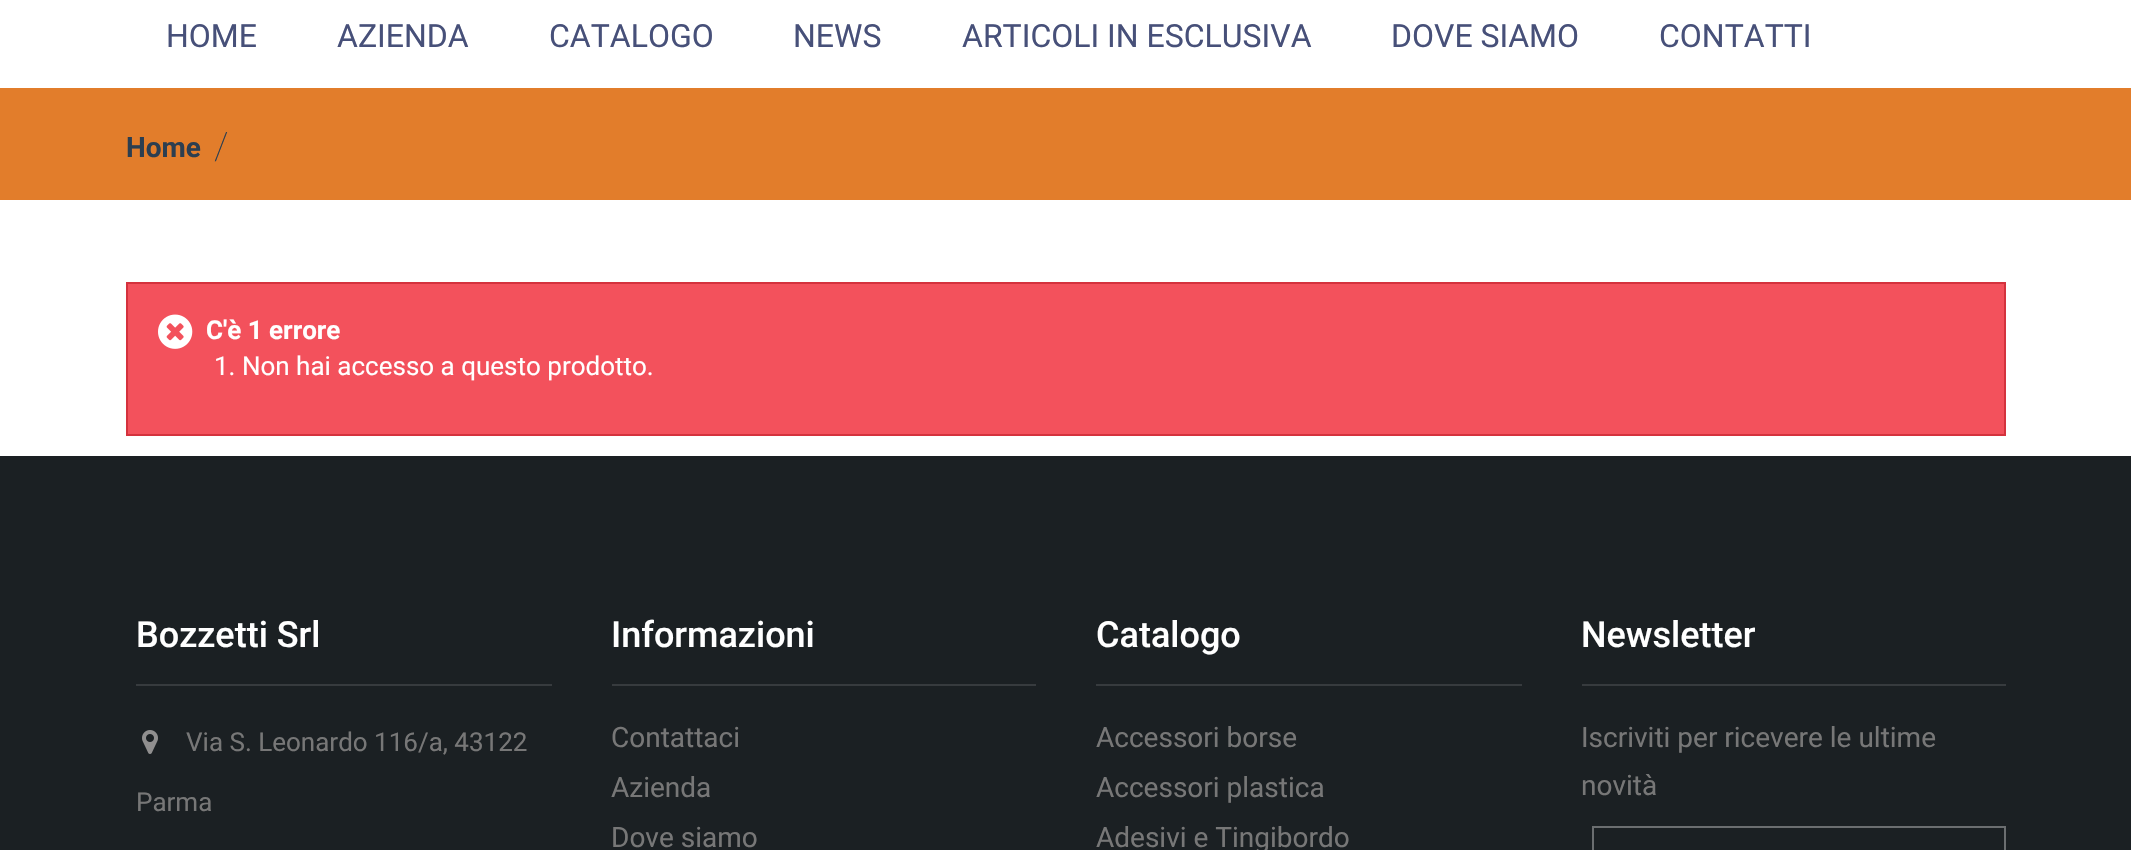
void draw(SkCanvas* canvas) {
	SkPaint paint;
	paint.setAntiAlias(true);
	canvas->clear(0xffffffff);
	paint.setColor(0xffe27d2b);
	canvas->drawRect(SkRect::MakeXYWH(0, 88, 2131, 12), paint);
	SkFont f1(fontMgr->matchFamilyStyle("Roboto", SkFontStyle::Normal()), 32);
	f1.setSubpixel(true);
	paint.setColor(0xff475079);
	canvas->drawString("HOME", 166, 47, f1, paint);
	canvas->drawString("AZIENDA", 337, 47, f1, paint);
	canvas->drawString("CATALOGO", 549, 47, f1, paint);
	canvas->drawString("NEWS", 793, 47, f1, paint);
	canvas->drawString("ARTICOLI IN ESCLUSIVA", 962, 47, f1, paint);
	canvas->drawString("DOVE SIAMO", 1391, 47, f1, paint);
	canvas->drawString("CONTATTI", 1659, 47, f1, paint);
	paint.setColor(0xffe27d2b);
	canvas->drawRect(SkRect::MakeXYWH(0, 100, 2131, 100), paint);
	SkFont f2(fontMgr->matchFamilyStyle("Roboto", SkFontStyle::Bold()), 28);
	f2.setSubpixel(true);
	paint.setColor(0xff2c3e50);
	canvas->drawString("Home", 126, 157, f2, paint);
	SkFont f3(fontMgr->matchFamilyStyle("Roboto", SkFontStyle(100, SkFontStyle::kNormal_Width, SkFontStyle::kUpright_Slant)), 38);
	f3.setSubpixel(true);
	canvas->drawString("/", 214, 159, f3, paint);
	paint.setColor(0xfff3515c);
	canvas->drawRect(SkRect::MakeXYWH(127, 283, 1878, 152), paint);
	paint.setStroke(true);
	paint.setStrokeWidth(2);
	paint.setColor(0xffd4323d);
	canvas->drawRect(SkRect::MakeXYWH(127, 283, 1878, 152), paint);
	canvas->drawImageRect(SkImages::DeferredFromEncodedData(SkData::MakeFromFileName("img1.png")), SkRect::MakeXYWH(158, 314, 35, 35), SkSamplingOptions());
	SkFont f4(fontMgr->matchFamilyStyle("Roboto", SkFontStyle::Bold()), 26);
	f4.setSubpixel(true);
	paint.setStroke(false);
	paint.setColor(0xffffffff);
	canvas->drawString("C'è 1 errore", 206, 339, f4, paint);
	SkFont f5(fontMgr->matchFamilyStyle("Roboto", SkFontStyle::Normal()), 26);
	f5.setSubpixel(true);
	canvas->drawString("1. Non hai accesso a questo prodotto.", 214, 375, f5, paint);
	paint.setColor(0xff1b2023);
	canvas->drawRect(SkRect::MakeXYWH(0, 456, 2131, 394), paint);
	paint.setColor(0xff373b3e);
	canvas->drawRect(SkRect::MakeXYWH(136, 684, 416, 2), paint);
	SkFont f6(fontMgr->matchFamilyStyle("Roboto", SkFontStyle(500, SkFontStyle::kNormal_Width, SkFontStyle::kUpright_Slant)), 36);
	f6.setSubpixel(true);
	paint.setColor(0xffffffff);
	canvas->drawString("Bozzetti Srl", 136, 647, f6, paint);
	canvas->drawImageRect(SkImages::DeferredFromEncodedData(SkData::MakeFromFileName("img2.png")), SkRect::MakeXYWH(142, 730, 16, 24), SkSamplingOptions());
	paint.setColor(0xff777777);
	canvas->drawString("Via S. Leonardo 116/a, 43122", 186, 751, f5, paint);
	canvas->drawString("Parma", 136, 811, f5, paint);
	paint.setColor(0xff373b3e);
	canvas->drawRect(SkRect::MakeXYWH(612, 684, 424, 2), paint);
	paint.setColor(0xffffffff);
	canvas->drawString("Informazioni", 611, 647, f6, paint);
	SkFont f7(fontMgr->matchFamilyStyle("Roboto", SkFontStyle::Normal()), 28);
	f7.setSubpixel(true);
	paint.setColor(0xff777777);
	canvas->drawString("Contattaci", 611, 747, f7, paint);
	canvas->drawString("Azienda", 611, 797, f7, paint);
	canvas->drawString("Dove siamo", 611, 847, f7, paint);
	paint.setColor(0xff373b3e);
	canvas->drawRect(SkRect::MakeXYWH(1096, 684, 426, 2), paint);
	paint.setColor(0xffffffff);
	canvas->drawString("Catalogo", 1096, 647, f6, paint);
	paint.setColor(0xff777777);
	canvas->drawString("Accessori borse", 1096, 747, f7, paint);
	canvas->drawString("Accessori plastica", 1096, 797, f7, paint);
	canvas->drawString("Adesivi e Tingibordo", 1096, 847, f7, paint);
	paint.setColor(0xff373b3e);
	canvas->drawRect(SkRect::MakeXYWH(1582, 684, 424, 2), paint);
	paint.setColor(0xffffffff);
	canvas->drawString("Newsletter", 1581, 647, f6, paint);
	paint.setColor(0xff777777);
	canvas->drawString("Iscriviti per ricevere le ultime", 1581, 747, f7, paint);
	canvas->drawString("novità", 1581, 795, f7, paint);
	paint.setStroke(true);
	paint.setColor(0xff6b6e70);
	canvas->drawRect(SkRect::MakeXYWH(1593, 827, 412, 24), paint);
}
